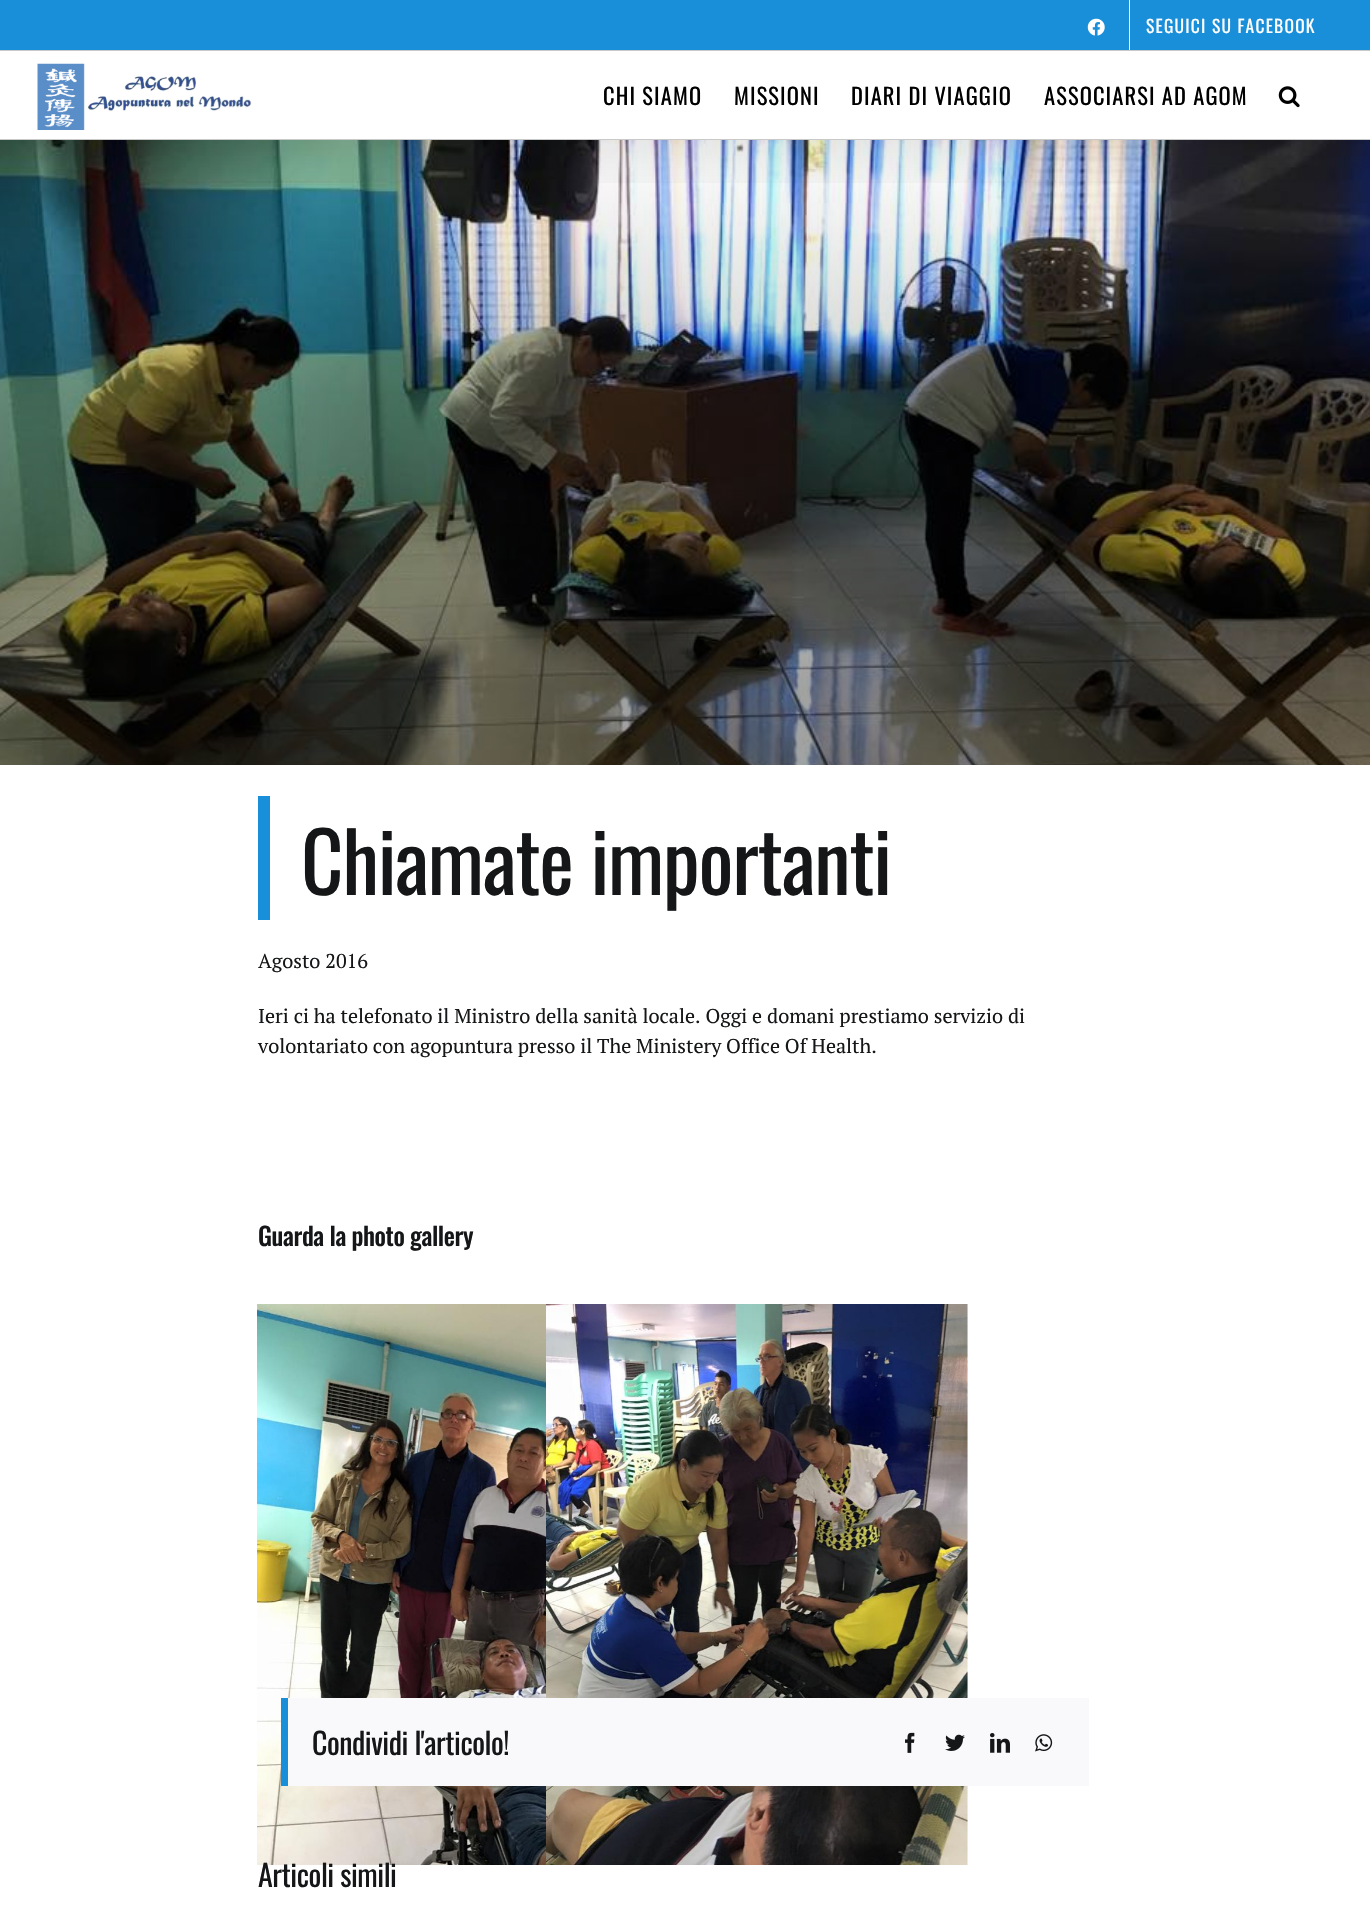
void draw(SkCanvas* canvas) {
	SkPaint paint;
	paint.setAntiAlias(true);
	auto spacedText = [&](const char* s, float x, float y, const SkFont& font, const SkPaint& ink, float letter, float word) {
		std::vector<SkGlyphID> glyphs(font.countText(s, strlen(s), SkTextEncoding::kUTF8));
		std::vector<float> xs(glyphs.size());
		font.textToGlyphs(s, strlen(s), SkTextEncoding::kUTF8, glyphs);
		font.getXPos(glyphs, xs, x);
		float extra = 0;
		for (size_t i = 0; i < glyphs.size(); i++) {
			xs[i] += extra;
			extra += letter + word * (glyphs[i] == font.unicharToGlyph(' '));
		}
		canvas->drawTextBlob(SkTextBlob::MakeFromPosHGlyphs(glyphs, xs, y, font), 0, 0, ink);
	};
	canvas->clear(0xffffffff);
	canvas->drawImageRect(SkImages::DeferredFromEncodedData(SkData::MakeFromFileName("img4.png")), SkRect::MakeXYWH(0, 140, 1370, 625), SkSamplingOptions());
	canvas->save();
	canvas->clipRect(SkRect::MakeXYWH(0, 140, 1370, 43));
	paint.setColor(0x24000000);
	paint.setMaskFilter(SkMaskFilter::MakeBlur(kNormal_SkBlurStyle, 31));
	canvas->drawRect(SkRect::MakeXYWH(3, 15, 1365, 135), paint);
	paint.setMaskFilter(nullptr);
	canvas->restore();
	paint.setColor(0xff198fd9);
	canvas->drawRect(SkRect::MakeXYWH(0, 0, 1370, 50), paint);
	paint.setColor(0xffc9c9c9);
	canvas->drawRect(SkRect::MakeXYWH(0, 50, 1370, 1), paint);
	canvas->drawImageRect(SkImages::DeferredFromEncodedData(SkData::MakeFromFileName("img1.png")), SkRect::MakeXYWH(1087, 18, 18, 18), SkSamplingOptions());
	paint.setColor(0xffffffff);
	canvas->drawRect(SkRect::MakeXYWH(1129, 0, 1, 50), paint);
	SkFont f1(fontMgr->matchFamilyStyle("Oswald", SkFontStyle::Normal()), 17.5);
	f1.setSubpixel(true);
	spacedText("SEGUICI SU FACEBOOK", 1146, 33, f1, paint, 1.25, 0);
	paint.setColor(0xffc9c9c9);
	canvas->drawRect(SkRect::MakeXYWH(0, 139, 1370, 1), paint);
	canvas->drawImageRect(SkImages::DeferredFromEncodedData(SkData::MakeFromFileName("img2.png")), SkRect::MakeXYWH(37, 63, 215, 67), SkSamplingOptions());
	SkFont f2(fontMgr->matchFamilyStyle("Oswald", SkFontStyle::Normal()), 22.5);
	f2.setSubpixel(true);
	paint.setColor(0xff000000);
	spacedText("CHI SIAMO", 603, 105, f2, paint, 1.1, 0);
	spacedText("MISSIONI", 734, 105, f2, paint, 1.1, 0);
	spacedText("DIARI DI VIAGGIO", 851, 105, f2, paint, 1.1, 0);
	spacedText("ASSOCIARSI AD AGOM", 1044, 105, f2, paint, 1.1, 0);
	canvas->drawImageRect(SkImages::DeferredFromEncodedData(SkData::MakeFromFileName("img3.png")), SkRect::MakeXYWH(1278, 86, 22, 22), SkSamplingOptions());
	paint.setColor(0xff198fd9);
	canvas->drawRect(SkRect::MakeXYWH(258, 796, 12, 124), paint);
	SkFont f3(fontMgr->matchFamilyStyle("Oswald", SkFontStyle::Normal()), 82.5);
	f3.setSubpixel(true);
	paint.setColor(0xff141617);
	spacedText("Chiamate importanti", 301, 895, f3, paint, -1.25, 0);
	SkFont f4(fontMgr->matchFamilyStyle("PT Serif", SkFontStyle::Normal()), 20);
	f4.setSubpixel(true);
	canvas->drawString("Agosto 2016", 258, 968, f4, paint);
	canvas->drawString("Ieri ci ha telefonato il Ministro della sanità locale. Oggi e domani prestiamo servizio di", 258, 1023, f4, paint);
	canvas->drawString("volontariato con agopuntura presso il The Ministery Office Of Health.", 258, 1053, f4, paint);
	SkFont f5(fontMgr->matchFamilyStyle("Oswald", SkFontStyle(500, SkFontStyle::kNormal_Width, SkFontStyle::kUpright_Slant)), 25);
	f5.setSubpixel(true);
	spacedText("Guarda la photo gallery", 258, 1246, f5, paint, -0.4, 0);
	canvas->drawImageRect(SkImages::DeferredFromEncodedData(SkData::MakeFromFileName("img5.png")), SkRect::MakeXYWH(257, 1304, 289, 561), SkSamplingOptions());
	canvas->drawImageRect(SkImages::DeferredFromEncodedData(SkData::MakeFromFileName("img6.png")), SkRect::MakeXYWH(546, 1304, 422, 561), SkSamplingOptions());
	paint.setColor(0xfff9f9fb);
	canvas->drawRect(SkRect::MakeXYWH(288, 1698, 801, 88), paint);
	paint.setColor(0xff198fd9);
	canvas->drawRect(SkRect::MakeXYWH(281, 1698, 7, 88), paint);
	SkFont f6(fontMgr->matchFamilyStyle("Oswald", SkFontStyle::Normal()), 30);
	f6.setSubpixel(true);
	paint.setColor(0xff141617);
	spacedText("Condividi l'articolo!", 312, 1755, f6, paint, -0.45, 0);
	canvas->drawImageRect(SkImages::DeferredFromEncodedData(SkData::MakeFromFileName("img7.png")), SkRect::MakeXYWH(905, 1732, 10, 21), SkSamplingOptions());
	canvas->drawImageRect(SkImages::DeferredFromEncodedData(SkData::MakeFromFileName("img8.png")), SkRect::MakeXYWH(945, 1734, 20, 17), SkSamplingOptions());
	canvas->drawImageRect(SkImages::DeferredFromEncodedData(SkData::MakeFromFileName("img9.png")), SkRect::MakeXYWH(990, 1733, 20, 20), SkSamplingOptions());
	canvas->drawImageRect(SkImages::DeferredFromEncodedData(SkData::MakeFromFileName("img10.png")), SkRect::MakeXYWH(1035, 1734, 18, 18), SkSamplingOptions());
	spacedText("Articoli simili", 258, 1887, f6, paint, -0.45, 0);
}
